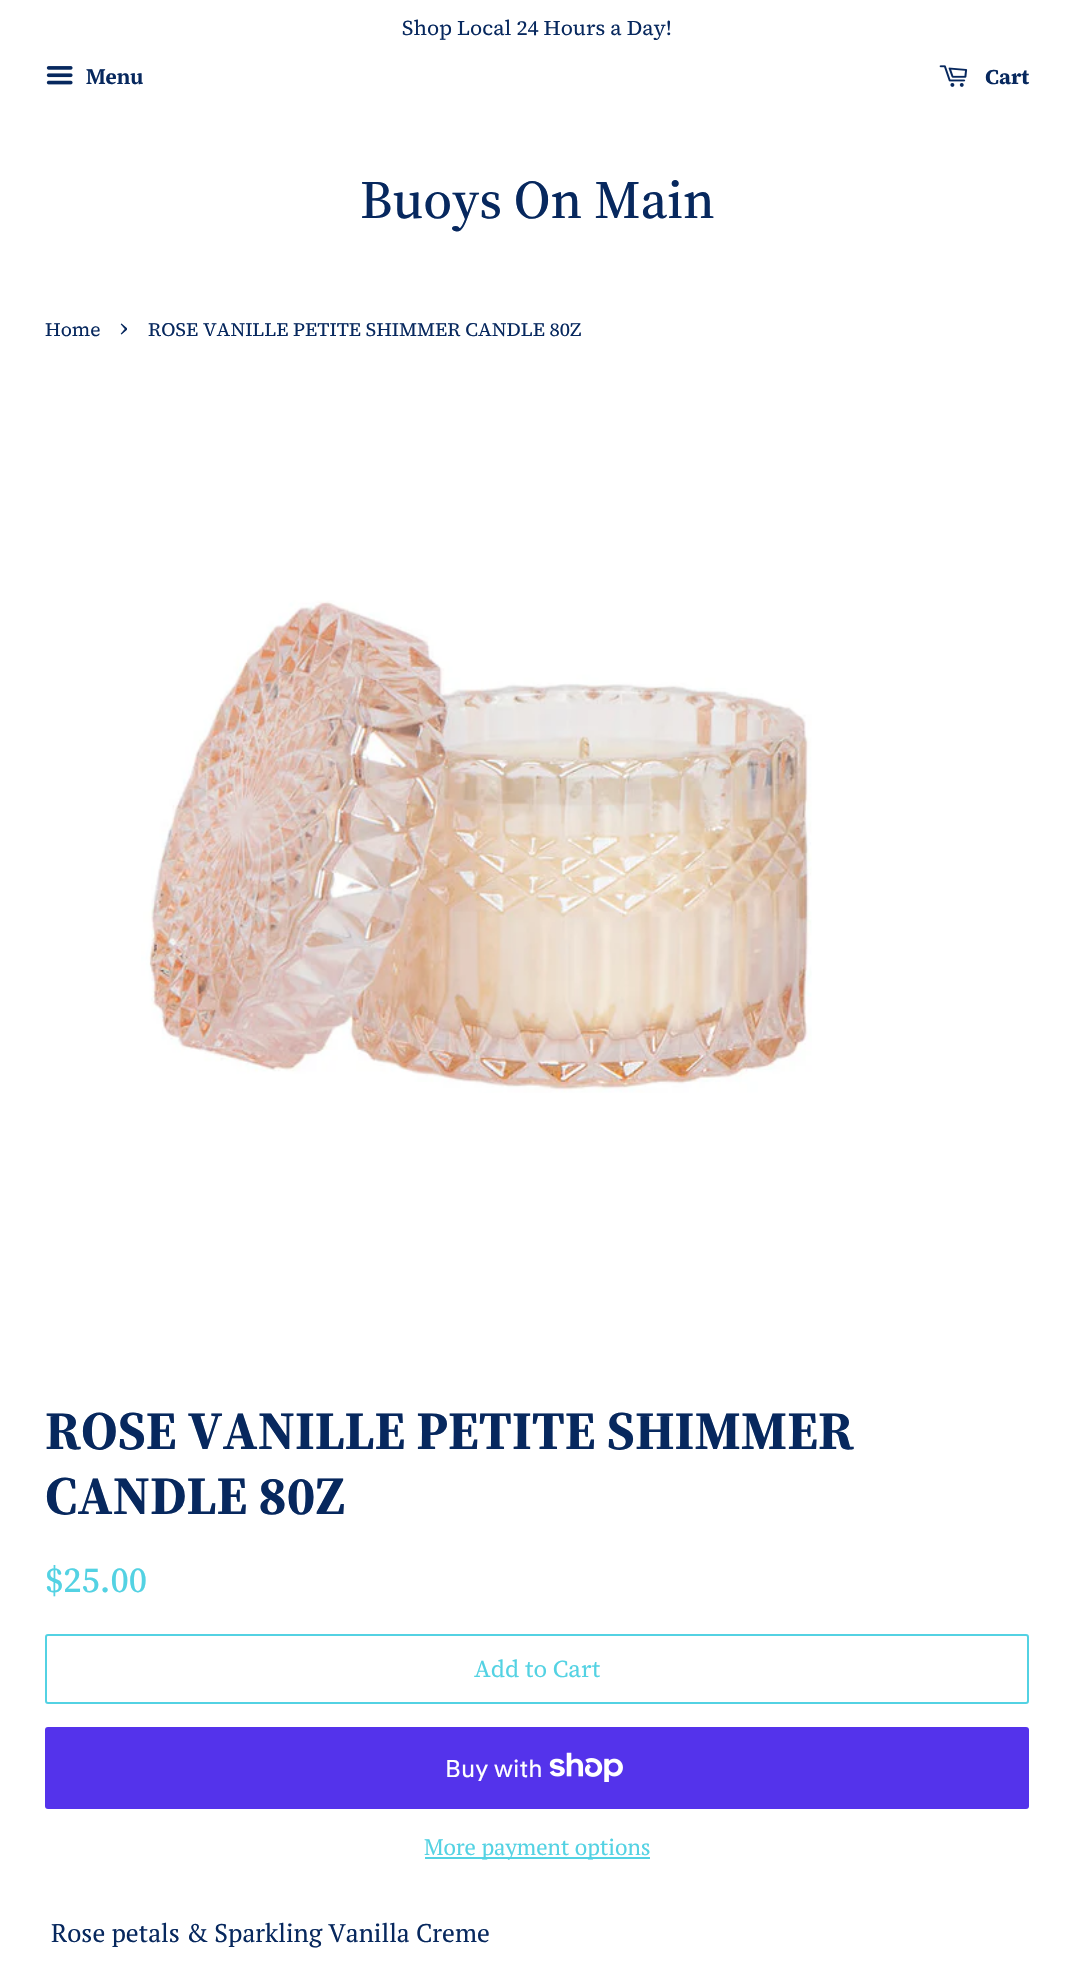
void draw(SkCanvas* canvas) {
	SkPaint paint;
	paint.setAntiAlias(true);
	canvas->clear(0xffffffff);
	SkFont f1(fontMgr->matchFamilyStyle("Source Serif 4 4", SkFontStyle::Normal()), 21);
	f1.setSubpixel(true);
	paint.setColor(0xff07285e);
	canvas->drawString("Shop Local 24 Hours a Day!", 402, 35, f1, paint);
	canvas->drawImageRect(SkImages::DeferredFromEncodedData(SkData::MakeFromFileName("img1.png")), SkRect::MakeXYWH(46, 66, 27, 19), SkSamplingOptions());
	SkFont f2(fontMgr->matchFamilyStyle("PT Serif", SkFontStyle::Bold()), 21);
	f2.setSubpixel(true);
	canvas->drawString("Menu", 86, 84, f2, paint);
	canvas->drawImageRect(SkImages::DeferredFromEncodedData(SkData::MakeFromFileName("img2.png")), SkRect::MakeXYWH(939, 65, 29, 22), SkSamplingOptions());
	SkFont f3(fontMgr->matchFamilyStyle("Source Serif 4", SkFontStyle::Bold()), 21);
	f3.setSubpixel(true);
	canvas->drawString("Cart", 985, 84, f3, paint);
	SkFont f4(fontMgr->matchFamilyStyle("Source Serif 4", SkFontStyle(500, SkFontStyle::kNormal_Width, SkFontStyle::kUpright_Slant)), 54);
	f4.setSubpixel(true);
	canvas->drawString("Buoys On Main", 360, 218, f4, paint);
	SkFont f5(fontMgr->matchFamilyStyle("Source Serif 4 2", SkFontStyle::Normal()), 19.1);
	f5.setSubpixel(true);
	canvas->drawString("Home", 45, 336, f5, paint);
	SkFont f6(fontMgr->matchFamilyStyle("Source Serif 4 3", SkFontStyle::Normal()), 27);
	f6.setSubpixel(true);
	canvas->drawString("›", 120, 336, f6, paint);
	canvas->drawString("ROSE VANILLE PETITE SHIMMER CANDLE 80Z", 148, 336, f5, paint);
	canvas->drawImageRect(SkImages::DeferredFromEncodedData(SkData::MakeFromFileName("img3.png")), SkRect::MakeXYWH(141, 600, 671, 493), SkSamplingOptions());
	SkFont f7(fontMgr->matchFamilyStyle("Source Serif 4 2", SkFontStyle::Bold()), 54);
	f7.setSubpixel(true);
	canvas->drawString("ROSE VANILLE PETITE SHIMMER", 45, 1449, f7, paint);
	canvas->drawString("CANDLE 80Z", 45, 1514, f7, paint);
	SkFont f8(fontMgr->matchFamilyStyle("Source Serif 4 2", SkFontStyle(500, SkFontStyle::kNormal_Width, SkFontStyle::kUpright_Slant)), 36);
	f8.setSubpixel(true);
	paint.setColor(0xff53d2e3);
	canvas->drawString("$25.00", 45, 1592, f8, paint);
	paint.setStroke(true);
	paint.setStrokeWidth(2);
	canvas->drawRoundRect(SkRect::MakeXYWH(46, 1635, 982, 68), 2, 2, paint);
	SkFont f9(fontMgr->matchFamilyStyle("Source Serif 4", SkFontStyle::Normal()), 24);
	f9.setSubpixel(true);
	paint.setStroke(false);
	canvas->drawString("Add to Cart", 474, 1677, f9, paint);
	paint.setColor(0xff5433eb);
	canvas->drawRoundRect(SkRect::MakeXYWH(45, 1727, 984, 82), 3, 3, paint);
	SkFont f10(fontMgr->matchFamilyStyle("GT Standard", SkFontStyle::Normal()), 24);
	f10.setSubpixel(true);
	paint.setColor(0xffffffff);
	canvas->drawString("Buy with", 445, 1777, f10, paint);
	canvas->drawImageRect(SkImages::DeferredFromEncodedData(SkData::MakeFromFileName("img4.png")), SkRect::MakeXYWH(549, 1752, 74, 30), SkSamplingOptions());
	paint.setColor(0xff53d2e3);
	canvas->drawRect(SkRect::MakeXYWH(425, 1857, 225, 2), paint);
	SkFont f11(fontMgr->matchFamilyStyle("PT Serif", SkFontStyle::Normal()), 22.5);
	f11.setSubpixel(true);
	canvas->drawString("More payment options", 424, 1855, f11, paint);
	SkFont f12(fontMgr->matchFamilyStyle("PT Serif", SkFontStyle::Normal()), 25.5);
	f12.setSubpixel(true);
	paint.setColor(0xff07285e);
	canvas->drawString("Rose petals & Sparkling Vanilla Creme", 51, 1942, f12, paint);
}
